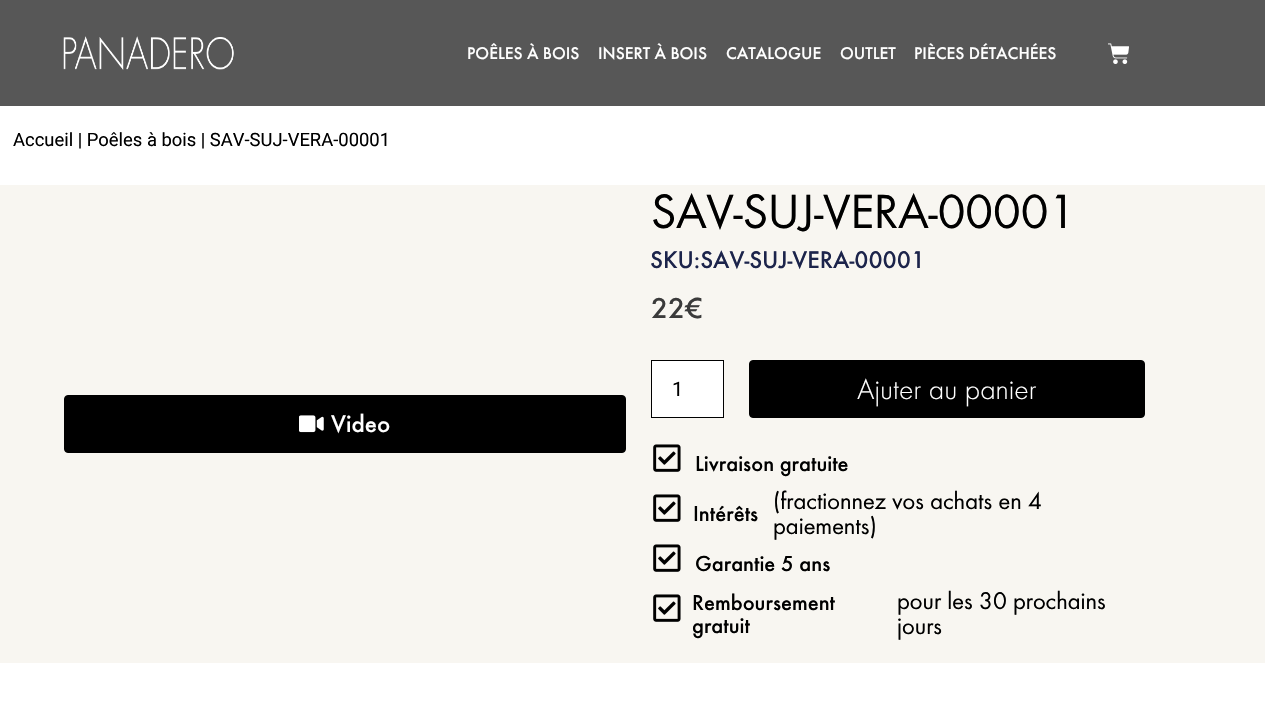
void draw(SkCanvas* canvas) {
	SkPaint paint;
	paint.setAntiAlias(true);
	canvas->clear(0xffffffff);
	paint.setColor(0xff575757);
	canvas->drawRect(SkRect::MakeXYWH(0, 0, 1265, 106), paint);
	canvas->drawImageRect(SkImages::DeferredFromEncodedData(SkData::MakeFromFileName("img1.png")), SkRect::MakeXYWH(63, 36, 171, 34), SkSamplingOptions());
	SkFont f1(fontMgr->matchFamilyStyle("Futura", SkFontStyle(500, SkFontStyle::kNormal_Width, SkFontStyle::kUpright_Slant)), 17.5);
	f1.setSubpixel(true);
	paint.setColor(0xffffffff);
	canvas->drawString("POÊLES À BOIS", 467, 59, f1, paint);
	canvas->drawString("INSERT À BOIS", 598, 59, f1, paint);
	canvas->drawString("CATALOGUE", 726, 59, f1, paint);
	canvas->drawString("OUTLET", 840, 59, f1, paint);
	canvas->drawString("PIÈCES DÉTACHÉES", 914, 59, f1, paint);
	canvas->drawImageRect(SkImages::DeferredFromEncodedData(SkData::MakeFromFileName("img2.png")), SkRect::MakeXYWH(1108, 43, 21, 21), SkSamplingOptions());
	SkFont f2(fontMgr->matchFamilyStyle("Roboto", SkFontStyle::Normal()), 18.4);
	f2.setSubpixel(true);
	paint.setColor(0xff000000);
	canvas->drawString("Accueil | Poêles à bois | SAV-SUJ-VERA-00001", 13, 146, f2, paint);
	paint.setColor(0xfff8f6f1);
	canvas->drawRect(SkRect::MakeXYWH(0, 185, 1265, 478), paint);
	paint.setColor(0xff000000);
	canvas->drawRoundRect(SkRect::MakeXYWH(64.5, 395.5, 561, 57), 3.5, 3.5, paint);
	paint.setStroke(true);
	paint.setStrokeWidth(1);
	canvas->drawRoundRect(SkRect::MakeXYWH(64.5, 395.5, 561, 57), 3.5, 3.5, paint);
	canvas->drawImageRect(SkImages::DeferredFromEncodedData(SkData::MakeFromFileName("img3.png")), SkRect::MakeXYWH(299, 415, 25, 18), SkSamplingOptions());
	SkFont f3(fontMgr->matchFamilyStyle("Futura", SkFontStyle(500, SkFontStyle::kNormal_Width, SkFontStyle::kUpright_Slant)), 25);
	f3.setSubpixel(true);
	paint.setStroke(false);
	paint.setColor(0xffffffff);
	canvas->drawString("Video", 331, 432, f3, paint);
	SkFont f4(fontMgr->matchFamilyStyle("Futura", SkFontStyle::Normal()), 50);
	f4.setSubpixel(true);
	paint.setColor(0xff000000);
	canvas->drawString("SAV-SUJ-VERA-00001", 651, 228, f4, paint);
	paint.setColor(0xff1c244b);
	canvas->drawString("SKU:SAV-SUJ-VERA-00001", 650, 268, f3, paint);
	SkFont f5(fontMgr->matchFamilyStyle("Futura", SkFontStyle(500, SkFontStyle::kNormal_Width, SkFontStyle::kUpright_Slant)), 30);
	f5.setSubpixel(true);
	paint.setColor(0xff3b3b3b);
	canvas->drawString("22€", 651, 318, f5, paint);
	paint.setColor(0xffffffff);
	canvas->drawRect(SkRect::MakeXYWH(651.5, 360.5, 72, 57), paint);
	paint.setStroke(true);
	paint.setColor(0xff000000);
	canvas->drawRect(SkRect::MakeXYWH(651.5, 360.5, 72, 57), paint);
	SkFont f6(fontMgr->matchFamilyStyle("Roboto", SkFontStyle::Normal()), 20);
	f6.setSubpixel(true);
	paint.setStroke(false);
	canvas->drawString("1", 672, 396, f6, paint);
	canvas->drawRoundRect(SkRect::MakeXYWH(749.5, 360.5, 395, 57), 3.5, 3.5, paint);
	paint.setStroke(true);
	canvas->drawRoundRect(SkRect::MakeXYWH(749.5, 360.5, 395, 57), 3.5, 3.5, paint);
	SkFont f7(fontMgr->matchFamilyStyle("Futura", SkFontStyle(300, SkFontStyle::kNormal_Width, SkFontStyle::kUpright_Slant)), 30);
	f7.setSubpixel(true);
	paint.setStroke(false);
	paint.setColor(0xffffffff);
	canvas->drawString("Ajuter au panier", 857, 399, f7, paint);
	canvas->drawImageRect(SkImages::DeferredFromEncodedData(SkData::MakeFromFileName("img4.png")), SkRect::MakeXYWH(653, 444, 28, 28), SkSamplingOptions());
	SkFont f8(fontMgr->matchFamilyStyle("Futura", SkFontStyle(500, SkFontStyle::kNormal_Width, SkFontStyle::kUpright_Slant)), 22.5);
	f8.setSubpixel(true);
	paint.setColor(0xff000000);
	canvas->drawString("Livraison gratuite", 695, 471, f8, paint);
	canvas->drawImageRect(SkImages::DeferredFromEncodedData(SkData::MakeFromFileName("img4.png")), SkRect::MakeXYWH(653, 494, 28, 28), SkSamplingOptions());
	canvas->drawString("Intérêts", 693, 521, f8, paint);
	SkFont f9(fontMgr->matchFamilyStyle("Futura", SkFontStyle::Normal()), 25);
	f9.setSubpixel(true);
	canvas->drawString("(fractionnez vos achats en 4", 773, 509, f9, paint);
	canvas->drawString("paiements)", 773, 534, f9, paint);
	canvas->drawImageRect(SkImages::DeferredFromEncodedData(SkData::MakeFromFileName("img4.png")), SkRect::MakeXYWH(653, 544, 28, 28), SkSamplingOptions());
	canvas->drawString("Garantie 5 ans", 695, 571, f8, paint);
	canvas->drawImageRect(SkImages::DeferredFromEncodedData(SkData::MakeFromFileName("img4.png")), SkRect::MakeXYWH(653, 594, 28, 28), SkSamplingOptions());
	canvas->drawString("Remboursement", 692, 610, f8, paint);
	canvas->drawString("gratuit", 692, 633, f8, paint);
	canvas->drawString("pour les 30 prochains", 897, 609, f9, paint);
	canvas->drawString("jours", 897, 634, f9, paint);
}
